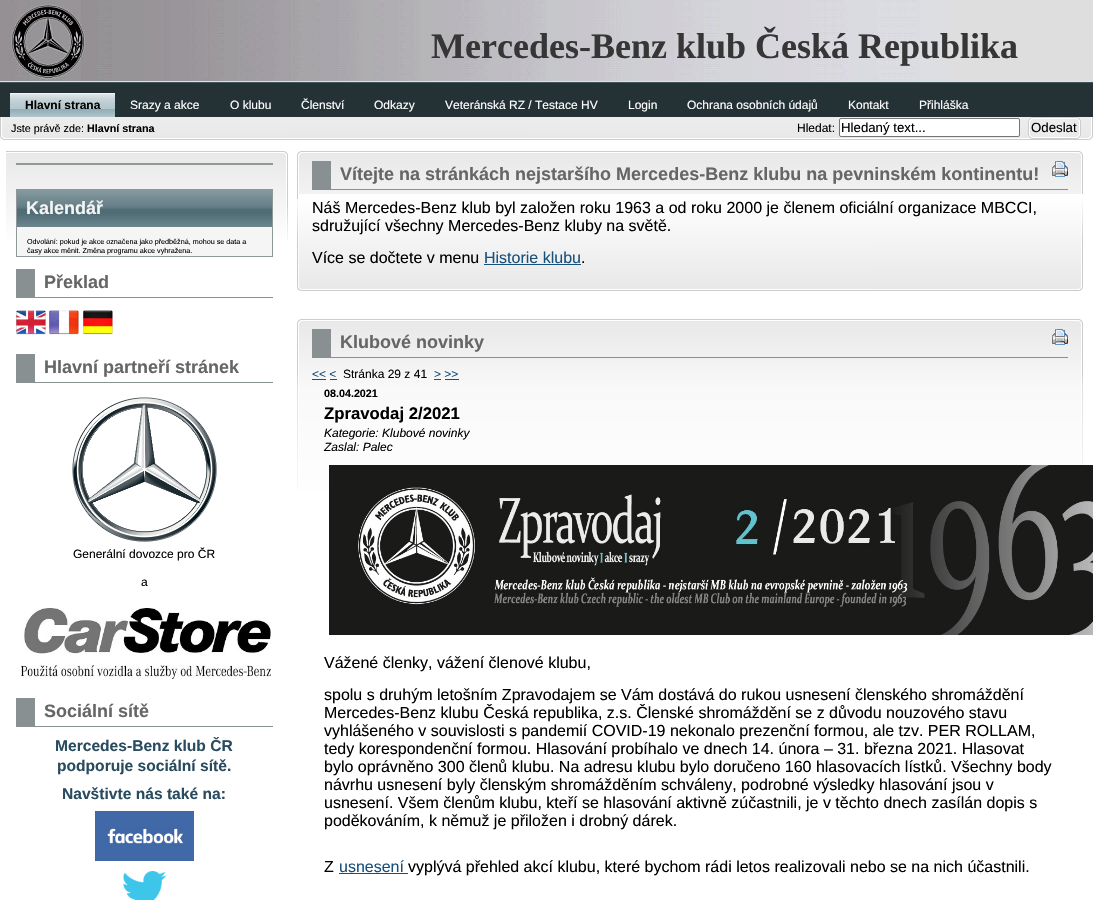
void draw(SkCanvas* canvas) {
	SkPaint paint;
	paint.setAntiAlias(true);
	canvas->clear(0xffffffff);
	paint.setColor(0xffdedede);
	canvas->drawRect(SkRect::MakeXYWH(950, 0, 143, 81), paint);
	canvas->drawImageRect(SkImages::DeferredFromEncodedData(SkData::MakeFromFileName("img1.png")), SkRect::MakeXYWH(0, 0, 950, 81), SkSamplingOptions());
	paint.setColor(0xffd9e2e6);
	canvas->drawRect(SkRect::MakeXYWH(0, 81, 1093, 1), paint);
	SkFont f1(fontMgr->matchFamilyStyle("Liberation Serif", SkFontStyle::Bold()), 36);
	f1.setSubpixel(true);
	paint.setColor(0xff363636);
	canvas->drawString("Mercedes-Benz klub Česká Republika", 431, 58, f1, paint);
	paint.setColor(0xff243135);
	canvas->drawRect(SkRect::MakeXYWH(0, 83, 1093, 34), paint);
	paint.setColor(0xff3f565c);
	canvas->drawRect(SkRect::MakeXYWH(0, 82, 1093, 1), paint);
	canvas->drawImageRect(SkImages::DeferredFromEncodedData(SkData::MakeFromFileName("img2.png")), SkRect::MakeXYWH(10, 93, 105, 24), SkSamplingOptions());
	SkFont f2(fontMgr->matchFamilyStyle("Liberation Sans", SkFontStyle::Bold()), 12);
	f2.setSubpixel(true);
	paint.setColor(0xff000000);
	canvas->drawString("Hlavní strana", 25, 109, f2, paint);
	SkFont f3(fontMgr->matchFamilyStyle("Liberation Sans", SkFontStyle::Normal()), 12);
	f3.setSubpixel(true);
	paint.setColor(0xffffffff);
	canvas->drawString("Srazy a akce", 130, 109, f3, paint);
	canvas->drawString("O klubu", 230, 109, f3, paint);
	canvas->drawString("Členství", 301, 109, f3, paint);
	canvas->drawString("Odkazy", 374, 109, f3, paint);
	canvas->drawString("Veteránská RZ / Testace HV", 445, 109, f3, paint);
	canvas->drawString("Login", 628, 109, f3, paint);
	canvas->drawString("Ochrana osobních údajů", 687, 109, f3, paint);
	canvas->drawString("Kontakt", 848, 109, f3, paint);
	canvas->drawString("Přihláška", 919, 109, f3, paint);
	canvas->drawImageRect(SkImages::DeferredFromEncodedData(SkData::MakeFromFileName("img3.png")), SkRect::MakeXYWH(293, 117, 800, 23), SkSamplingOptions());
	canvas->drawImageRect(SkImages::DeferredFromEncodedData(SkData::MakeFromFileName("img4.png")), SkRect::MakeXYWH(0, 117, 293, 23), SkSamplingOptions());
	SkFont f4(fontMgr->matchFamilyStyle("Liberation Sans", SkFontStyle::Normal()), 10.75);
	f4.setSubpixel(true);
	paint.setColor(0xff000000);
	canvas->drawString("Jste právě zde:", 11, 132, f4, paint);
	SkFont f5(fontMgr->matchFamilyStyle("Liberation Sans", SkFontStyle::Bold()), 10.75);
	f5.setSubpixel(true);
	canvas->drawString("Hlavní strana", 87, 132, f5, paint);
	canvas->drawString("Hledat:", 797, 132, f3, paint);
	paint.setColor(0xffffffff);
	canvas->drawRoundRect(SkRect::MakeXYWH(839.5, 118.5, 180, 18), 1.5, 1.5, paint);
	paint.setStroke(true);
	paint.setStrokeWidth(1);
	paint.setColor(0xff767676);
	canvas->drawRoundRect(SkRect::MakeXYWH(839.5, 118.5, 180, 18), 1.5, 1.5, paint);
	SkFont f6(fontMgr->matchFamilyStyle("Liberation Sans", SkFontStyle::Normal()), 13.25);
	f6.setSubpixel(true);
	paint.setStroke(false);
	paint.setColor(0xff000000);
	canvas->drawString("Hledaný text...", 841, 132, f6, paint);
	canvas->drawImageRect(SkImages::DeferredFromEncodedData(SkData::MakeFromFileName("img5.png")), SkRect::MakeXYWH(1028, 117, 53, 22), SkSamplingOptions());
	canvas->drawString("Odeslat", 1031, 132, f6, paint);
	canvas->drawImageRect(SkImages::DeferredFromEncodedData(SkData::MakeFromFileName("img6.png")), SkRect::MakeXYWH(6, 151, 282, 90), SkSamplingOptions());
	paint.setColor(0xff909799);
	canvas->drawRect(SkRect::MakeXYWH(16, 163, 257, 2), paint);
	paint.setColor(0xfff5f5f5);
	canvas->drawRect(SkRect::MakeXYWH(17, 227, 255, 29), paint);
	paint.setStroke(true);
	paint.setColor(0xff909799);
	canvas->drawRect(SkRect::MakeXYWH(16.5, 189.5, 256, 67), paint);
	canvas->drawImageRect(SkImages::DeferredFromEncodedData(SkData::MakeFromFileName("img7.png")), SkRect::MakeXYWH(17, 190, 255, 37), SkSamplingOptions());
	SkFont f7(fontMgr->matchFamilyStyle("Liberation Sans", SkFontStyle::Bold()), 18);
	f7.setSubpixel(true);
	paint.setStroke(false);
	paint.setColor(0xfff5f5f5);
	canvas->drawString("Kalendář", 26, 214, f7, paint);
	SkFont f8(fontMgr->matchFamilyStyle("Liberation Sans", SkFontStyle::Normal()), 7.2);
	f8.setSubpixel(true);
	paint.setColor(0xff000000);
	canvas->drawString("Odvolání: pokud je akce označena jako předběžná, mohou se data a", 27, 244, f8, paint);
	canvas->drawString("časy akce měnit. Změna programu akce vyhražena.", 27, 253, f8, paint);
	paint.setColor(0xff899092);
	canvas->drawRect(SkRect::MakeXYWH(35, 297, 238, 1), paint);
	canvas->drawRect(SkRect::MakeXYWH(16, 269, 19, 29), paint);
	paint.setColor(0xff666666);
	canvas->drawString("Překlad", 44, 288, f7, paint);
	canvas->drawImageRect(SkImages::DeferredFromEncodedData(SkData::MakeFromFileName("img8.png")), SkRect::MakeXYWH(16, 310, 30, 25), SkSamplingOptions());
	canvas->drawImageRect(SkImages::DeferredFromEncodedData(SkData::MakeFromFileName("img9.png")), SkRect::MakeXYWH(49, 310, 30, 25), SkSamplingOptions());
	canvas->drawImageRect(SkImages::DeferredFromEncodedData(SkData::MakeFromFileName("img10.png")), SkRect::MakeXYWH(83, 310, 30, 25), SkSamplingOptions());
	paint.setColor(0xff899092);
	canvas->drawRect(SkRect::MakeXYWH(35, 382, 238, 1), paint);
	canvas->drawRect(SkRect::MakeXYWH(16, 354, 19, 29), paint);
	paint.setColor(0xff666666);
	canvas->drawString("Hlavní partneří stránek", 44, 373, f7, paint);
	canvas->drawImageRect(SkImages::DeferredFromEncodedData(SkData::MakeFromFileName("img11.png")), SkRect::MakeXYWH(72, 397, 145, 145), SkSamplingOptions());
	paint.setColor(0xff000000);
	canvas->drawString("Generální dovozce pro ČR", 73, 558, f3, paint);
	canvas->drawString("a", 141, 586, f3, paint);
	canvas->drawImageRect(SkImages::DeferredFromEncodedData(SkData::MakeFromFileName("img12.png")), SkRect::MakeXYWH(21, 608, 250, 71), SkSamplingOptions());
	paint.setColor(0xff899092);
	canvas->drawRect(SkRect::MakeXYWH(35, 726, 238, 1), paint);
	canvas->drawRect(SkRect::MakeXYWH(16, 698, 19, 29), paint);
	paint.setColor(0xff666666);
	canvas->drawString("Sociální sítě", 44, 717, f7, paint);
	SkFont f9(fontMgr->matchFamilyStyle("Liberation Sans", SkFontStyle::Bold()), 15.6);
	f9.setSubpixel(true);
	paint.setColor(0xff294b5f);
	canvas->drawString("Mercedes-Benz klub ČR", 55, 751, f9, paint);
	canvas->drawString("podporuje sociální sítě.", 57, 771, f9, paint);
	canvas->drawString("Navštivte nás také na:", 62, 799, f9, paint);
	canvas->drawImageRect(SkImages::DeferredFromEncodedData(SkData::MakeFromFileName("img13.png")), SkRect::MakeXYWH(95, 811, 99, 50), SkSamplingOptions());
	canvas->drawImageRect(SkImages::DeferredFromEncodedData(SkData::MakeFromFileName("img14.png")), SkRect::MakeXYWH(123, 871, 44, 29), SkSamplingOptions());
	canvas->drawImageRect(SkImages::DeferredFromEncodedData(SkData::MakeFromFileName("img15.png")), SkRect::MakeXYWH(486, 151, 597, 43), SkSamplingOptions());
	canvas->drawImageRect(SkImages::DeferredFromEncodedData(SkData::MakeFromFileName("img16.png")), SkRect::MakeXYWH(297, 151, 189, 140), SkSamplingOptions());
	canvas->drawImageRect(SkImages::DeferredFromEncodedData(SkData::MakeFromFileName("img17.png")), SkRect::MakeXYWH(297, 194, 786, 97), SkSamplingOptions());
	canvas->drawImageRect(SkImages::DeferredFromEncodedData(SkData::MakeFromFileName("img18.png")), SkRect::MakeXYWH(1078, 201, 5, 90), SkSamplingOptions());
	paint.setColor(0xff899092);
	canvas->drawRect(SkRect::MakeXYWH(331, 189, 737, 1), paint);
	canvas->drawRect(SkRect::MakeXYWH(312, 161, 19, 29), paint);
	paint.setColor(0xff666666);
	canvas->drawString("Vítejte na stránkách nejstaršího Mercedes-Benz klubu na pevninském kontinentu!", 340, 180, f7, paint);
	canvas->drawImageRect(SkImages::DeferredFromEncodedData(SkData::MakeFromFileName("img19.png")), SkRect::MakeXYWH(1052, 161, 16, 16), SkSamplingOptions());
	SkFont f10(fontMgr->matchFamilyStyle("Liberation Sans", SkFontStyle::Normal()), 16);
	f10.setSubpixel(true);
	paint.setColor(0xff000000);
	canvas->drawString("Náš Mercedes-Benz klub byl založen roku 1963 a od roku 2000 je členem oficiální organizace MBCCI,", 312, 213, f10, paint);
	canvas->drawString("sdružující všechny Mercedes-Benz kluby na světě.", 312, 231, f10, paint);
	canvas->drawString("Více se dočtete v menu", 312, 263, f10, paint);
	paint.setColor(0xff18507c);
	canvas->drawString("Historie klubu", 484, 263, f10, paint);
	paint.setColor(0xff000000);
	canvas->drawString(".", 581, 263, f10, paint);
	paint.setColor(0xff18507c);
	canvas->drawRect(SkRect::MakeXYWH(484, 264, 97, 1), paint);
	canvas->drawImageRect(SkImages::DeferredFromEncodedData(SkData::MakeFromFileName("img20.png")), SkRect::MakeXYWH(486, 319, 597, 146), SkSamplingOptions());
	canvas->drawImageRect(SkImages::DeferredFromEncodedData(SkData::MakeFromFileName("img21.png")), SkRect::MakeXYWH(297, 319, 189, 171), SkSamplingOptions());
	paint.setColor(0xff899092);
	canvas->drawRect(SkRect::MakeXYWH(331, 357, 737, 1), paint);
	canvas->drawRect(SkRect::MakeXYWH(312, 329, 19, 29), paint);
	paint.setColor(0xff666666);
	canvas->drawString("Klubové novinky", 340, 348, f7, paint);
	canvas->drawImageRect(SkImages::DeferredFromEncodedData(SkData::MakeFromFileName("img19.png")), SkRect::MakeXYWH(1052, 329, 16, 16), SkSamplingOptions());
	paint.setColor(0xff18507c);
	canvas->drawString("<< <", 312, 378, f3, paint);
	canvas->drawRect(SkRect::MakeXYWH(312, 379, 14, 1), paint);
	paint.setColor(0xff000000);
	canvas->drawString("Stránka 29 z 41", 343, 378, f3, paint);
	paint.setColor(0xff18507c);
	canvas->drawString("> >>", 434, 378, f3, paint);
	canvas->drawRect(SkRect::MakeXYWH(434, 379, 7, 1), paint);
	canvas->drawRect(SkRect::MakeXYWH(330, 379, 7, 1), paint);
	canvas->drawRect(SkRect::MakeXYWH(445, 379, 14, 1), paint);
	paint.setColor(0xff000000);
	canvas->drawString("08.04.2021", 324, 397, f5, paint);
	SkFont f11(fontMgr->matchFamilyStyle("Liberation Sans", SkFontStyle::Bold()), 16.75);
	f11.setSubpixel(true);
	canvas->drawString("Zpravodaj 2/2021", 324, 419, f11, paint);
	SkFont f12(fontMgr->matchFamilyStyle("Liberation Sans", SkFontStyle::Italic()), 12);
	f12.setSubpixel(true);
	canvas->drawString("Kategorie: Klubové novinky", 324, 437, f12, paint);
	canvas->drawString("Zaslal: Palec", 324, 451, f12, paint);
	canvas->drawImageRect(SkImages::DeferredFromEncodedData(SkData::MakeFromFileName("img22.png")), SkRect::MakeXYWH(329, 465, 764, 170), SkSamplingOptions());
	canvas->drawString("Vážené členky, vážení členové klubu,", 324, 668, f10, paint);
	canvas->drawString("spolu s druhým letošním Zpravodajem se Vám dostává do rukou usnesení členského shromáždění", 324, 700, f10, paint);
	canvas->drawString("Mercedes-Benz klubu Česká republika, z.s. Členské shromáždění se z důvodu nouzového stavu", 324, 718, f10, paint);
	canvas->drawString("vyhlášeného v souvislosti s pandemií COVID-19 nekonalo prezenční formou, ale tzv. PER ROLLAM,", 324, 736, f10, paint);
	canvas->drawString("tedy korespondenční formou. Hlasování probíhalo ve dnech 14. února – 31. března 2021. Hlasovat", 324, 754, f10, paint);
	canvas->drawString("bylo oprávněno 300 členů klubu. Na adresu klubu bylo doručeno 160 hlasovacích lístků. Všechny body", 324, 772, f10, paint);
	canvas->drawString("návrhu usnesení byly členským shromážděním schváleny, podrobné výsledky hlasování jsou v", 324, 790, f10, paint);
	canvas->drawString("usnesení. Všem členům klubu, kteří se hlasování aktivně zúčastnili, je v těchto dnech zasílán dopis s", 324, 808, f10, paint);
	canvas->drawString("poděkováním, k němuž je přiložen i drobný dárek.", 324, 826, f10, paint);
	canvas->drawString("Z", 324, 872, f10, paint);
	paint.setColor(0xff18507c);
	canvas->drawString("usnesení", 339, 872, f10, paint);
	paint.setColor(0xff000000);
	canvas->drawString("vyplývá přehled akcí klubu, které bychom rádi letos realizovali nebo se na nich účastnili.", 408, 872, f10, paint);
	paint.setColor(0xff18507c);
	canvas->drawRect(SkRect::MakeXYWH(339, 873, 69, 1), paint);
}
